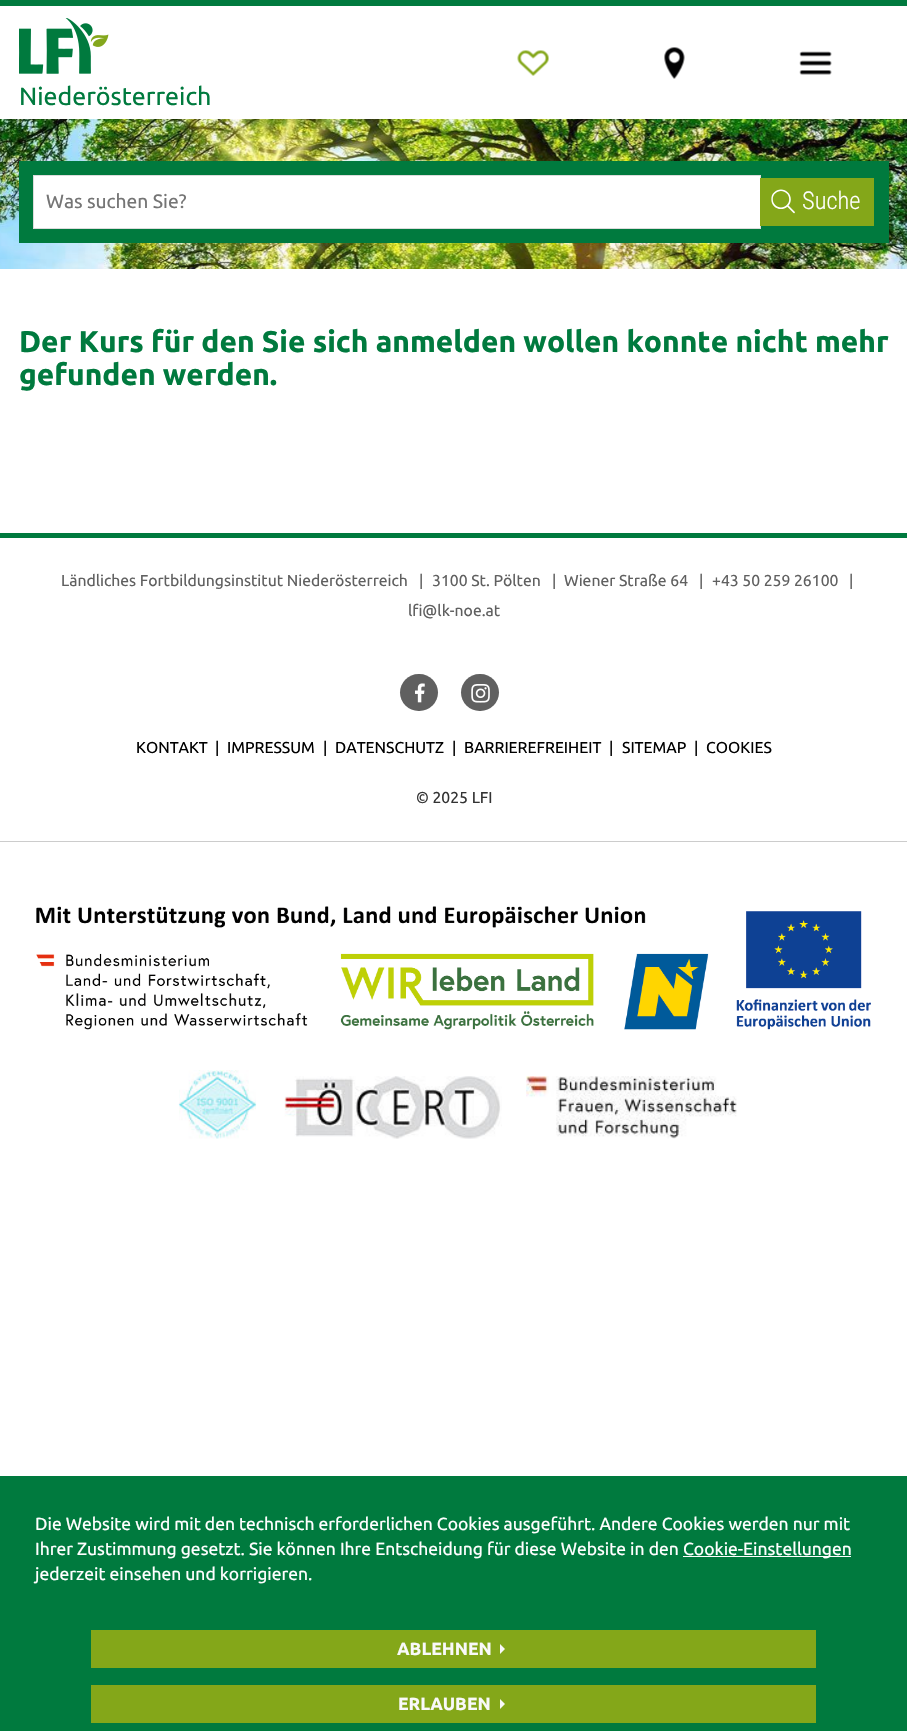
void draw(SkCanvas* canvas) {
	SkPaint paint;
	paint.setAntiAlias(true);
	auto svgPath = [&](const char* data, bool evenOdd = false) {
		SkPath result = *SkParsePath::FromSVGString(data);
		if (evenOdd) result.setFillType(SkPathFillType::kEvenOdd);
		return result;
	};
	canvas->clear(0xffffffff);
	paint.setColor(0xff007a3e);
	canvas->drawRect(SkRect::MakeXYWH(0, 0, 907, 6), paint);
	canvas->drawImageRect(SkImages::DeferredFromEncodedData(SkData::MakeFromFileName("img1.png")), SkRect::MakeXYWH(664, 47, 21, 32), SkSamplingOptions());
	canvas->drawImageRect(SkImages::DeferredFromEncodedData(SkData::MakeFromFileName("img2.png")), SkRect::MakeXYWH(517, 50, 32, 26), SkSamplingOptions());
	canvas->drawImageRect(SkImages::DeferredFromEncodedData(SkData::MakeFromFileName("img3.png")), SkRect::MakeXYWH(799, 51, 33, 24), SkSamplingOptions());
	canvas->drawImageRect(SkImages::DeferredFromEncodedData(SkData::MakeFromFileName("img4.png")), SkRect::MakeXYWH(19, 18, 90, 56), SkSamplingOptions());
	SkFont f1(fontMgr->matchFamilyStyle("Ubuntu", SkFontStyle::Normal()), 25);
	f1.setSubpixel(true);
	canvas->drawString("Niederösterreich", 19, 105, f1, paint);
	canvas->drawImageRect(SkImages::DeferredFromEncodedData(SkData::MakeFromFileName("img5.png")), SkRect::MakeXYWH(0, 119, 907, 150), SkSamplingOptions());
	canvas->drawRect(SkRect::MakeXYWH(19, 161, 870, 82), paint);
	paint.setColor(0xffffffff);
	canvas->drawRect(SkRect::MakeXYWH(33.5, 175.5, 727, 53), paint);
	paint.setStroke(true);
	paint.setStrokeWidth(1);
	paint.setColor(0xffdcdcdc);
	canvas->drawRect(SkRect::MakeXYWH(33.5, 175.5, 727, 53), paint);
	SkFont f2(fontMgr->matchFamilyStyle("Ubuntu", SkFontStyle::Normal()), 19.25);
	f2.setSubpixel(true);
	paint.setStroke(false);
	paint.setColor(0xff757575);
	canvas->drawString("Was suchen Sie?", 46, 208, f2, paint);
	paint.setColor(0xff84a719);
	canvas->drawRect(SkRect::MakeXYWH(760, 178, 114, 48), paint);
	canvas->drawImageRect(SkImages::DeferredFromEncodedData(SkData::MakeFromFileName("img6.png")), SkRect::MakeXYWH(771, 189, 24, 25), SkSamplingOptions());
	SkFont f3(fontMgr->matchFamilyStyle("Roboto Condensed", SkFontStyle(300, SkFontStyle::kNormal_Width, SkFontStyle::kUpright_Slant)), 24.5);
	f3.setSubpixel(true);
	paint.setColor(0xffffffff);
	canvas->drawString("Suche", 802, 209, f3, paint);
	SkFont f4(fontMgr->matchFamilyStyle("Ubuntu", SkFontStyle::Bold()), 30);
	f4.setSubpixel(true);
	paint.setColor(0xff007a3e);
	canvas->drawString("Der Kurs für den Sie sich anmelden wollen konnte nicht mehr", 19, 352, f4, paint);
	canvas->drawString("gefunden werden.", 19, 385, f4, paint);
	canvas->drawRect(SkRect::MakeXYWH(0, 533, 907, 5), paint);
	paint.setColor(0xffcccccc);
	canvas->drawRect(SkRect::MakeXYWH(0, 841, 907, 1), paint);
	SkFont f5(fontMgr->matchFamilyStyle("Ubuntu", SkFontStyle::Normal()), 15.75);
	f5.setSubpixel(true);
	paint.setColor(0xff606060);
	canvas->drawString("Ländliches Fortbildungsinstitut Niederösterreich", 61, 586, f5, paint);
	canvas->drawString("|", 419, 586, f5, paint);
	canvas->drawString("3100 St. Pölten", 432, 586, f5, paint);
	canvas->drawString("|", 552, 586, f5, paint);
	canvas->drawString("Wiener Straße 64", 564, 586, f5, paint);
	canvas->drawString("|", 699, 586, f5, paint);
	canvas->drawString("+43 50 259 26100", 712, 586, f5, paint);
	canvas->drawString("|", 849, 586, f5, paint);
	canvas->drawString("lfi@lk-noe.at", 408, 616, f5, paint);
	canvas->drawRoundRect(SkRect::MakeXYWH(400, 674, 38, 37), 18.5, 18.5, paint);
	canvas->drawImageRect(SkImages::DeferredFromEncodedData(SkData::MakeFromFileName("img7.png")), SkRect::MakeXYWH(415, 683, 10, 20), SkSamplingOptions());
	canvas->drawRoundRect(SkRect::MakeXYWH(461, 674, 38, 37), 18.5, 18.5, paint);
	canvas->drawImageRect(SkImages::DeferredFromEncodedData(SkData::MakeFromFileName("img8.png")), SkRect::MakeXYWH(471, 684, 19, 19), SkSamplingOptions());
	paint.setColor(0xff000000);
	canvas->drawString("KONTAKT", 136, 753, f5, paint);
	canvas->drawString("|", 215, 753, f5, paint);
	canvas->drawString("IMPRESSUM", 227, 753, f5, paint);
	canvas->drawString("|", 323, 753, f5, paint);
	canvas->drawString("DATENSCHUTZ", 335, 753, f5, paint);
	canvas->drawString("|", 452, 753, f5, paint);
	canvas->drawString("BARRIEREFREIHEIT", 464, 753, f5, paint);
	canvas->drawString("|", 609, 753, f5, paint);
	canvas->drawString("SITEMAP", 622, 753, f5, paint);
	canvas->drawString("|", 694, 753, f5, paint);
	canvas->drawString("COOKIES", 706, 753, f5, paint);
	paint.setColor(0xff333333);
	canvas->drawString("© 2025 LFI", 416, 803, f5, paint);
	canvas->drawImageRect(SkImages::DeferredFromEncodedData(SkData::MakeFromFileName("img9.png")), SkRect::MakeXYWH(36, 906, 835, 124), SkSamplingOptions());
	canvas->drawImageRect(SkImages::DeferredFromEncodedData(SkData::MakeFromFileName("img10.png")), SkRect::MakeXYWH(178, 1070, 79, 69), SkSamplingOptions());
	canvas->drawImageRect(SkImages::DeferredFromEncodedData(SkData::MakeFromFileName("img11.png")), SkRect::MakeXYWH(284, 1076, 218, 63), SkSamplingOptions());
	canvas->drawImageRect(SkImages::DeferredFromEncodedData(SkData::MakeFromFileName("img12.png")), SkRect::MakeXYWH(526, 1076, 211, 63), SkSamplingOptions());
	paint.setColor(0xff007a3e);
	canvas->drawRect(SkRect::MakeXYWH(0, 1476, 907, 255), paint);
	SkFont f6(fontMgr->matchFamilyStyle("Ubuntu", SkFontStyle::Normal()), 17.5);
	f6.setSubpixel(true);
	paint.setColor(0xffffffff);
	canvas->drawString("Die Website wird mit den technisch erforderlichen Cookies ausgeführt. Andere Cookies werden nur mit", 35, 1530, f6, paint);
	canvas->drawString("Ihrer Zustimmung gesetzt. Sie können Ihre Entscheidung für diese Website in den", 35, 1555, f6, paint);
	canvas->drawRect(SkRect::MakeXYWH(683, 1556, 168, 1), paint);
	canvas->drawString("Cookie-Einstellungen", 683, 1555, f6, paint);
	canvas->drawString("jederzeit einsehen und korrigieren.", 35, 1580, f6, paint);
	paint.setColor(0xff84a719);
	canvas->drawRect(SkRect::MakeXYWH(91, 1630, 725, 38), paint);
	SkFont f7(fontMgr->matchFamilyStyle("Ubuntu", SkFontStyle::Bold()), 17.5);
	f7.setSubpixel(true);
	paint.setColor(0xfff9f9f9);
	canvas->drawString("ABLEHNEN", 397, 1655, f7, paint);
	canvas->drawPath(svgPath("M500 1654V1644L505 1649Z"), paint);
	paint.setColor(0xff84a719);
	canvas->drawRect(SkRect::MakeXYWH(91, 1685, 725, 38), paint);
	paint.setColor(0xfff9f9f9);
	canvas->drawString("ERLAUBEN", 398, 1710, f7, paint);
	canvas->drawPath(svgPath("M500 1709V1699L505 1704Z"), paint);
}
